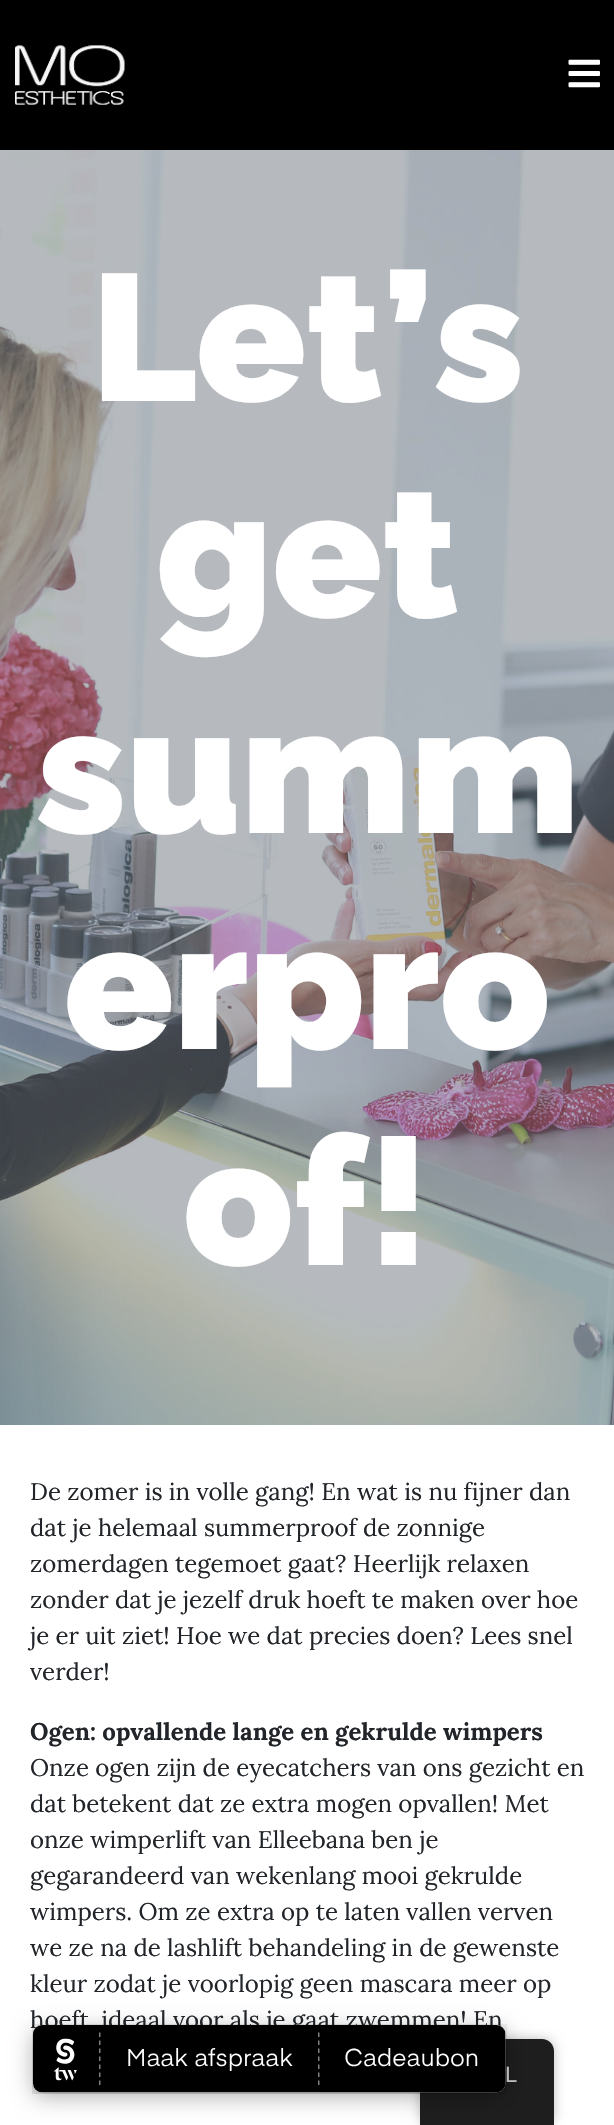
void draw(SkCanvas* canvas) {
	SkPaint paint;
	paint.setAntiAlias(true);
	auto svgPath = [&](const char* data, bool evenOdd = false) {
		SkPath result = *SkParsePath::FromSVGString(data);
		if (evenOdd) result.setFillType(SkPathFillType::kEvenOdd);
		return result;
	};
	canvas->clear(0xffffffff);
	paint.setColor(0xff000000);
	canvas->drawRect(SkRect::MakeXYWH(0, 0, 614, 150), paint);
	canvas->drawImageRect(SkImages::DeferredFromEncodedData(SkData::MakeFromFileName("img1.png")), SkRect::MakeXYWH(15, 45, 110, 60), SkSamplingOptions());
	canvas->drawImageRect(SkImages::DeferredFromEncodedData(SkData::MakeFromFileName("img2.png")), SkRect::MakeXYWH(568, 59, 32, 29), SkSamplingOptions());
	canvas->drawImageRect(SkImages::DeferredFromEncodedData(SkData::MakeFromFileName("img3.png")), SkRect::MakeXYWH(0, 150, 614, 1275), SkSamplingOptions());
	SkFont f1(fontMgr->matchFamilyStyle("Raleway", SkFontStyle(900, SkFontStyle::kNormal_Width, SkFontStyle::kUpright_Slant)), 180);
	f1.setSubpixel(true);
	paint.setColor(0xffffffff);
	canvas->drawString("Let’s", 91, 401, f1, paint);
	canvas->drawString("get", 156, 617, f1, paint);
	canvas->drawString("summ", 36, 833, f1, paint);
	canvas->drawString("erpro", 64, 1049, f1, paint);
	canvas->drawString("of!", 183, 1265, f1, paint);
	SkFont f2(fontMgr->matchFamilyStyle("Lora", SkFontStyle::Normal()), 24);
	f2.setSubpixel(true);
	paint.setColor(0xff212529);
	canvas->drawString("De zomer is in volle gang! En wat is nu fijner dan", 30, 1500, f2, paint);
	canvas->drawString("dat je helemaal summerproof de zonnige", 30, 1536, f2, paint);
	canvas->drawString("zomerdagen tegemoet gaat? Heerlijk relaxen", 30, 1572, f2, paint);
	canvas->drawString("zonder dat je jezelf druk hoeft te maken over hoe", 30, 1608, f2, paint);
	canvas->drawString("je er uit ziet! Hoe we dat precies doen? Lees snel", 30, 1644, f2, paint);
	canvas->drawString("verder!", 30, 1680, f2, paint);
	SkFont f3(fontMgr->matchFamilyStyle("Lora", SkFontStyle::Bold()), 24);
	f3.setSubpixel(true);
	canvas->drawString("Ogen: opvallende lange en gekrulde wimpers", 30, 1740, f3, paint);
	canvas->drawString("Onze ogen zijn de eyecatchers van ons gezicht en", 30, 1776, f2, paint);
	canvas->drawString("dat betekent dat ze extra mogen opvallen! Met", 30, 1812, f2, paint);
	canvas->drawString("onze wimperlift van Elleebana ben je", 30, 1848, f2, paint);
	canvas->drawString("gegarandeerd van wekenlang mooi gekrulde", 30, 1884, f2, paint);
	canvas->drawString("wimpers. Om ze extra op te laten vallen verven", 30, 1920, f2, paint);
	canvas->drawString("we ze na de lashlift behandeling in de gewenste", 30, 1956, f2, paint);
	canvas->drawString("kleur zodat je voorlopig geen mascara meer op", 30, 1992, f2, paint);
	canvas->drawString("hoeft, ideaal voor als je gaat zwemmen! En", 30, 2028, f2, paint);
	paint.setColor(0x40000000);
	paint.setMaskFilter(SkMaskFilter::MakeBlur(kNormal_SkBlurStyle, 6));
	canvas->drawRoundRect(SkRect::MakeXYWH(420, 2039, 134, 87), 12, 12, paint);
	paint.setMaskFilter(nullptr);
	paint.setColor(0xff1e1e1e);
	canvas->drawPath(svgPath("M432 2039H542C548.5 2039 554 2044.5 554 2051V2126H420V2051C420 2044.5 425.5 2039 432 2039Z"), paint);
	paint.setColor(0x4d000000);
	paint.setMaskFilter(SkMaskFilter::MakeBlur(kNormal_SkBlurStyle, 11));
	canvas->drawRoundRect(SkRect::MakeXYWH(33, 2030, 473, 67), 9, 9, paint);
	paint.setMaskFilter(nullptr);
	canvas->drawImageRect(SkImages::DeferredFromEncodedData(SkData::MakeFromFileName("img4.png")), SkRect::MakeXYWH(32, 2024, 475, 70), SkSamplingOptions());
	canvas->drawImageRect(SkImages::DeferredFromEncodedData(SkData::MakeFromFileName("img5.png")), SkRect::MakeXYWH(318, 2025, 188, 68), SkSamplingOptions());
	SkFont f4(fontMgr->matchFamilyStyle("Liberation Sans", SkFontStyle::Normal()), 22);
	f4.setSubpixel(true);
	paint.setColor(0xffbdbdbd);
	canvas->drawString("L", 505, 2082, f4, paint);
}
